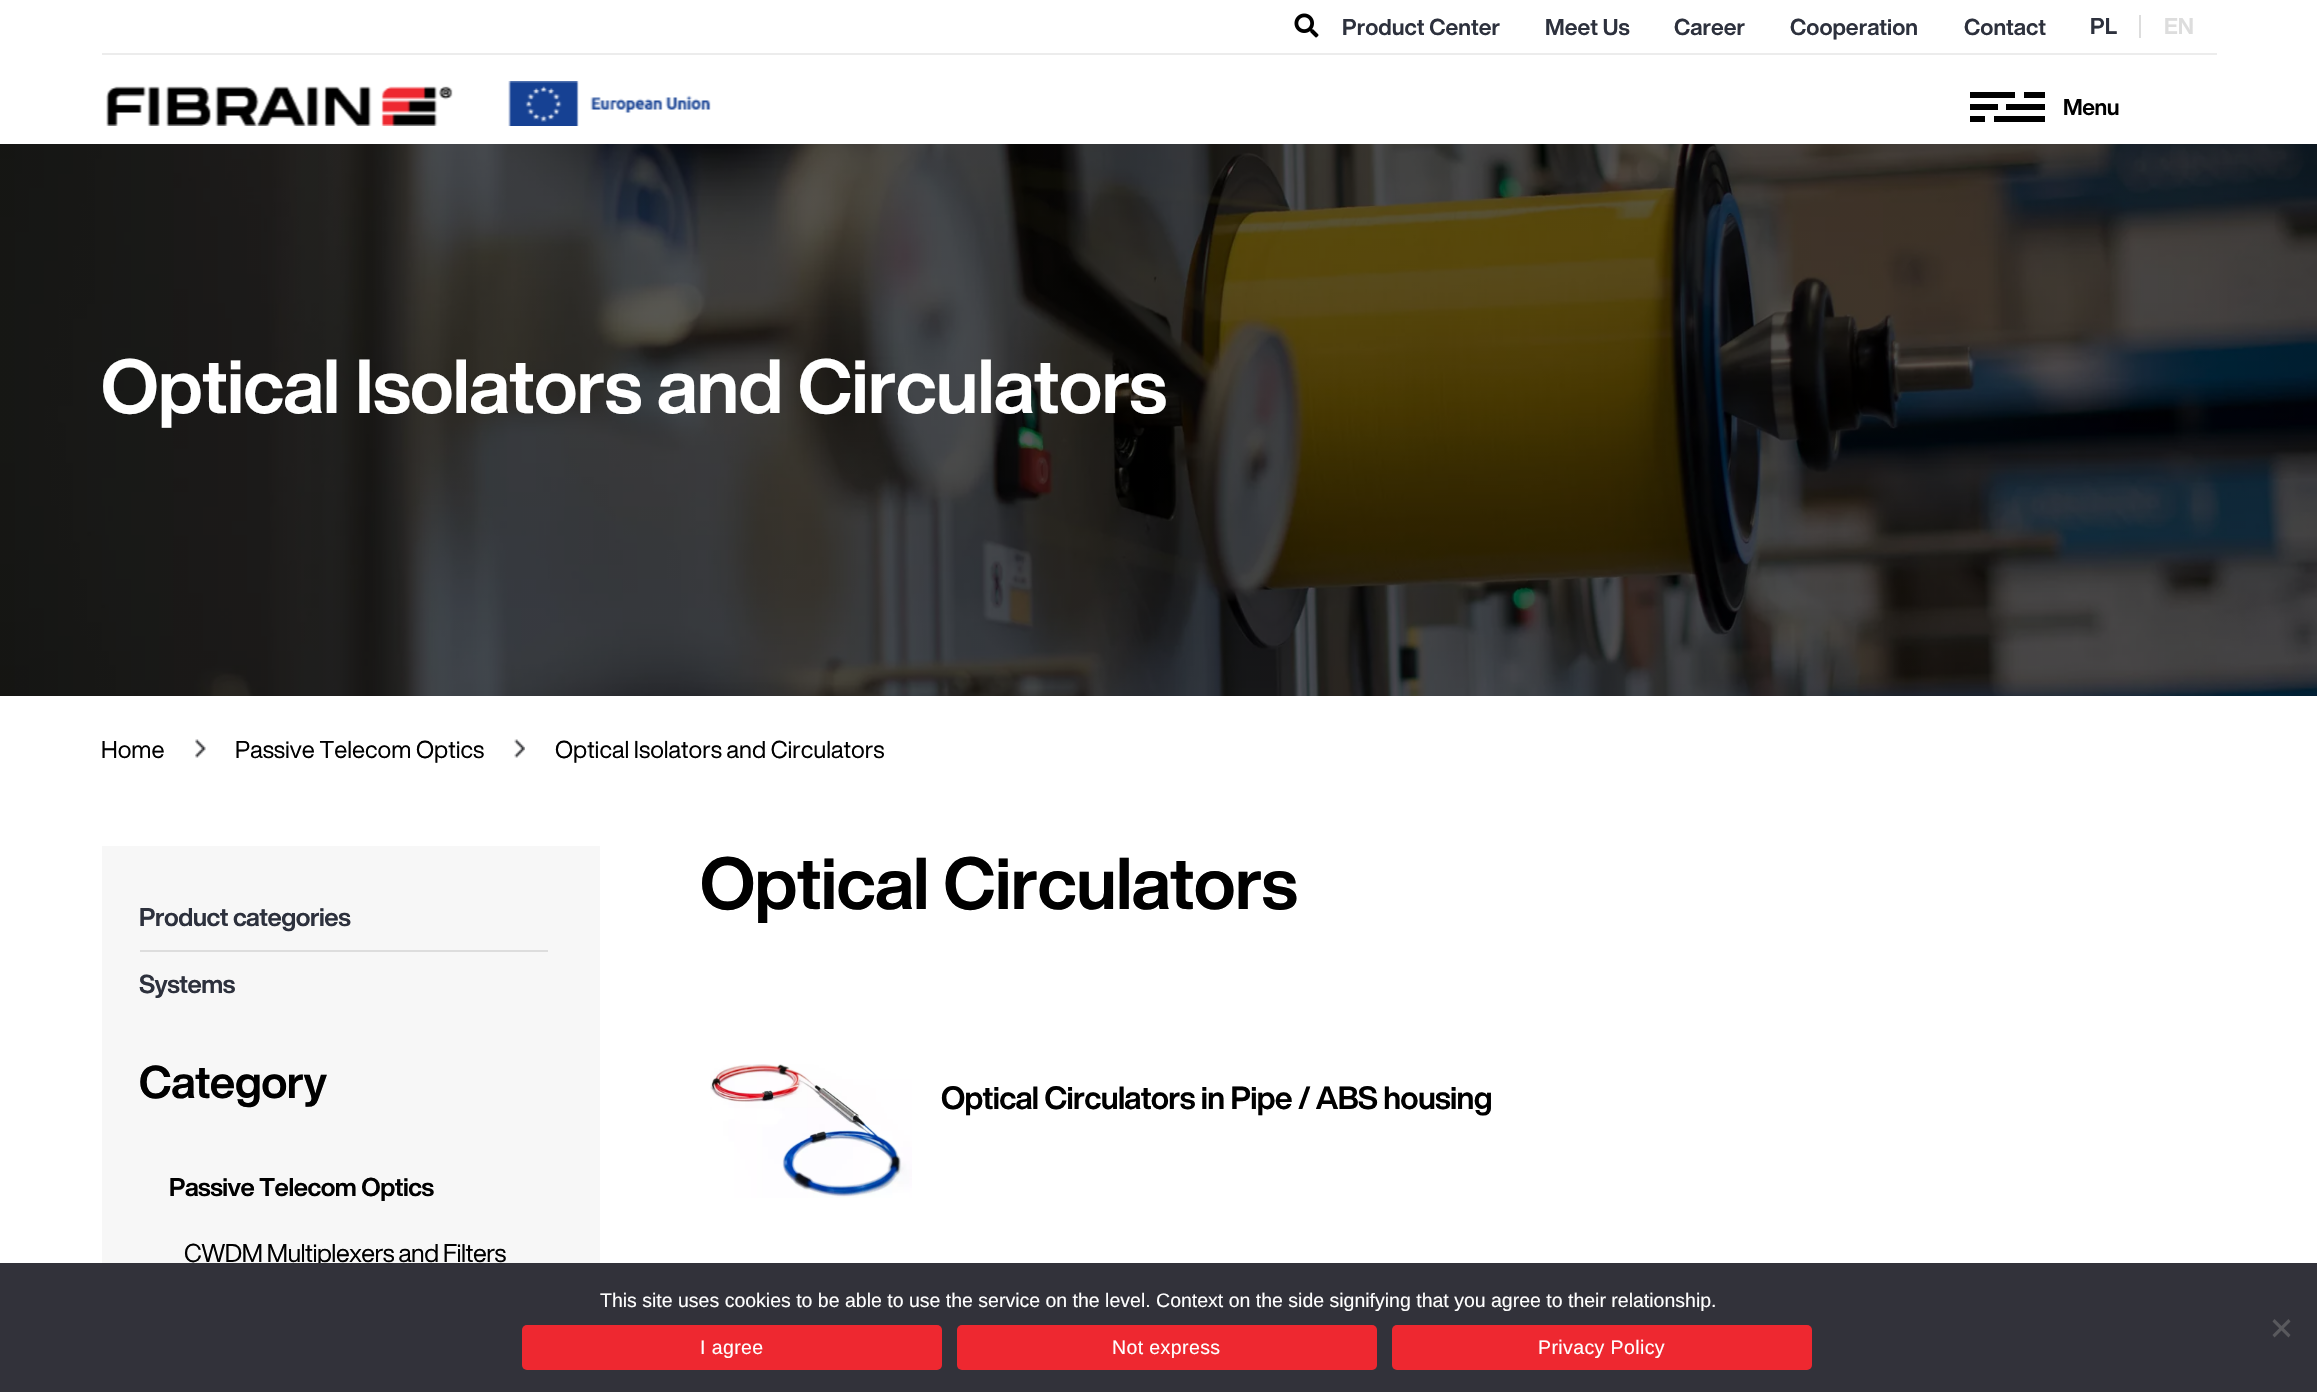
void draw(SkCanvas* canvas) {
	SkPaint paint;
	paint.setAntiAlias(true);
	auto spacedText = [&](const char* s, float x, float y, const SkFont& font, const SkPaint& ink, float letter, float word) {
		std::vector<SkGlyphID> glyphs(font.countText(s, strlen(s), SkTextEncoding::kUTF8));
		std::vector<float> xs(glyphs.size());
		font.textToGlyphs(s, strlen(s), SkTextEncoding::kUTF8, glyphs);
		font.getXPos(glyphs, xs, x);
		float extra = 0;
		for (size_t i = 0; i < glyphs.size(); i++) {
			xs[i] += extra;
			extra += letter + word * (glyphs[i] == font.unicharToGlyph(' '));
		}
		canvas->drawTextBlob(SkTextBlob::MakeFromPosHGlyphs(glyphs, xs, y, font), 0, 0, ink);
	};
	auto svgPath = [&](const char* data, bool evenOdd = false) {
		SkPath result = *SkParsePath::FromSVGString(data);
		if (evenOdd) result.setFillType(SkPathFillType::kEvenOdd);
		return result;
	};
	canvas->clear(0xffffffff);
	paint.setColor(0xffececec);
	canvas->drawRect(SkRect::MakeXYWH(102, 53, 2115, 2), paint);
	canvas->drawImageRect(SkImages::DeferredFromEncodedData(SkData::MakeFromFileName("img1.png")), SkRect::MakeXYWH(1294, 13, 25, 25), SkSamplingOptions());
	SkFont f1(fontMgr->matchFamilyStyle("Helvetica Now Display", SkFontStyle::Bold()), 22.5);
	f1.setSubpixel(true);
	paint.setColor(0xff2d313d);
	canvas->drawString("Product Center", 1342, 35, f1, paint);
	canvas->drawString("Meet Us", 1545, 35, f1, paint);
	canvas->drawString("Career", 1674, 35, f1, paint);
	canvas->drawString("Cooperation", 1790, 35, f1, paint);
	canvas->drawString("Contact", 1964, 35, f1, paint);
	canvas->drawString("PL", 2090, 34, f1, paint);
	paint.setColor(0xffdddddd);
	canvas->drawRect(SkRect::MakeXYWH(2139, 15, 2, 23), paint);
	canvas->drawString("EN", 2164, 34, f1, paint);
	canvas->drawImageRect(SkImages::DeferredFromEncodedData(SkData::MakeFromFileName("img2.png")), SkRect::MakeXYWH(106, 86, 347, 40), SkSamplingOptions());
	canvas->drawImageRect(SkImages::DeferredFromEncodedData(SkData::MakeFromFileName("img3.png")), SkRect::MakeXYWH(508, 81, 203, 45), SkSamplingOptions());
	paint.setColor(0xff000000);
	canvas->drawRect(SkRect::MakeXYWH(1970, 92, 45, 6), paint);
	canvas->drawRect(SkRect::MakeXYWH(2024, 92, 21, 6), paint);
	canvas->drawRect(SkRect::MakeXYWH(1970, 104, 28, 6), paint);
	canvas->drawRect(SkRect::MakeXYWH(2006, 104, 39, 6), paint);
	canvas->drawRect(SkRect::MakeXYWH(1970, 116, 15, 6), paint);
	canvas->drawRect(SkRect::MakeXYWH(1994, 116, 51, 6), paint);
	spacedText("Menu", 2063, 115, f1, paint, -0.5, 0);
	canvas->drawImageRect(SkImages::DeferredFromEncodedData(SkData::MakeFromFileName("img4.png")), SkRect::MakeXYWH(0, 144, 2317, 552), SkSamplingOptions());
	SkFont f2(fontMgr->matchFamilyStyle("Helvetica Now Display", SkFontStyle::Bold()), 75);
	f2.setSubpixel(true);
	paint.setColor(0xffffffff);
	spacedText("Optical Isolators and Circulators", 101, 413, f2, paint, -0.7, 0);
	SkFont f3(fontMgr->matchFamilyStyle("Helvetica Now Display", SkFontStyle::Normal()), 24);
	f3.setSubpixel(true);
	paint.setColor(0xff000000);
	canvas->drawString("Home", 101, 758, f3, paint);
	canvas->drawImageRect(SkImages::DeferredFromEncodedData(SkData::MakeFromFileName("img5.png")), SkRect::MakeXYWH(195, 739, 11, 19), SkSamplingOptions());
	canvas->drawString("Passive Telecom Optics", 235, 758, f3, paint);
	canvas->drawImageRect(SkImages::DeferredFromEncodedData(SkData::MakeFromFileName("img6.png")), SkRect::MakeXYWH(514, 739, 11, 19), SkSamplingOptions());
	canvas->drawString("Optical Isolators and Circulators", 555, 758, f3, paint);
	paint.setColor(0xfff7f7f7);
	canvas->drawRect(SkRect::MakeXYWH(102, 846, 498, 417), paint);
	paint.setColor(0xffdddddd);
	canvas->drawRect(SkRect::MakeXYWH(140, 950, 408, 2), paint);
	SkFont f4(fontMgr->matchFamilyStyle("Helvetica Now Display", SkFontStyle::Bold()), 25.25);
	f4.setSubpixel(true);
	paint.setColor(0xff2d313d);
	spacedText("Product categories", 139, 926, f4, paint, -0.5, 0);
	spacedText("Systems", 139, 993, f4, paint, -0.5, 0);
	SkFont f5(fontMgr->matchFamilyStyle("Helvetica Now Display", SkFontStyle::Bold()), 45);
	f5.setSubpixel(true);
	paint.setColor(0xff000000);
	spacedText("Category", 139, 1098, f5, paint, -0.5, 0);
	spacedText("Passive Telecom Optics", 169, 1196, f4, paint, -0.5, 0);
	SkFont f6(fontMgr->matchFamilyStyle("Helvetica Now Display", SkFontStyle::Normal()), 25.25);
	f6.setSubpixel(true);
	spacedText("CWDM Multiplexers and Filters", 184, 1262, f6, paint, -0.5, 0);
	SkFont f7(fontMgr->matchFamilyStyle("Helvetica Now Display", SkFontStyle::Bold()), 72);
	f7.setSubpixel(true);
	spacedText("Optical Circulators", 700, 909, f7, paint, -0.7, 0);
	canvas->drawImageRect(SkImages::DeferredFromEncodedData(SkData::MakeFromFileName("img7.png")), SkRect::MakeXYWH(710, 1064, 202, 134), SkSamplingOptions());
	SkFont f8(fontMgr->matchFamilyStyle("Helvetica Now Display", SkFontStyle::Bold()), 31.5);
	f8.setSubpixel(true);
	spacedText("Optical Circulators in Pipe / ABS housing", 941, 1109, f8, paint, -0.7, 0);
	paint.setColor(0xff32323a);
	canvas->drawRect(SkRect::MakeXYWH(0, 1263, 2317, 129), paint);
	SkFont f9(fontMgr->matchFamilyStyle("Liberation Sans", SkFontStyle::Normal()), 19.5);
	f9.setSubpixel(true);
	paint.setColor(0xffffffff);
	canvas->drawString("This site uses cookies to be able to use the service on the level. Context on the side signifying that you agree to their relationship.", 600, 1307, f9, paint);
	paint.setColor(0xff59595d);
	canvas->drawPath(svgPath("M2288.5 1319L2290.5 1321.5L2274.5 1337.5L2272.5 1335Z"), paint);
	canvas->drawPath(svgPath("M2272.5 1321.5L2274.5 1319L2290.5 1335L2288.5 1337.5Z"), paint);
	paint.setColor(0xffee2830);
	canvas->drawRoundRect(SkRect::MakeXYWH(522, 1325, 420, 45), 5, 5, paint);
	paint.setColor(0xffffffff);
	spacedText("I agree", 700, 1354, f9, paint, 0.4, 0);
	paint.setColor(0xffee2830);
	canvas->drawRoundRect(SkRect::MakeXYWH(957, 1325, 420, 45), 5, 5, paint);
	paint.setColor(0xffffffff);
	spacedText("Not express", 1112, 1354, f9, paint, 0.4, 0);
	paint.setColor(0xffee2830);
	canvas->drawRoundRect(SkRect::MakeXYWH(1392, 1325, 420, 45), 5, 5, paint);
	paint.setColor(0xffffffff);
	spacedText("Privacy Policy", 1538, 1354, f9, paint, 0.4, 0);
}
